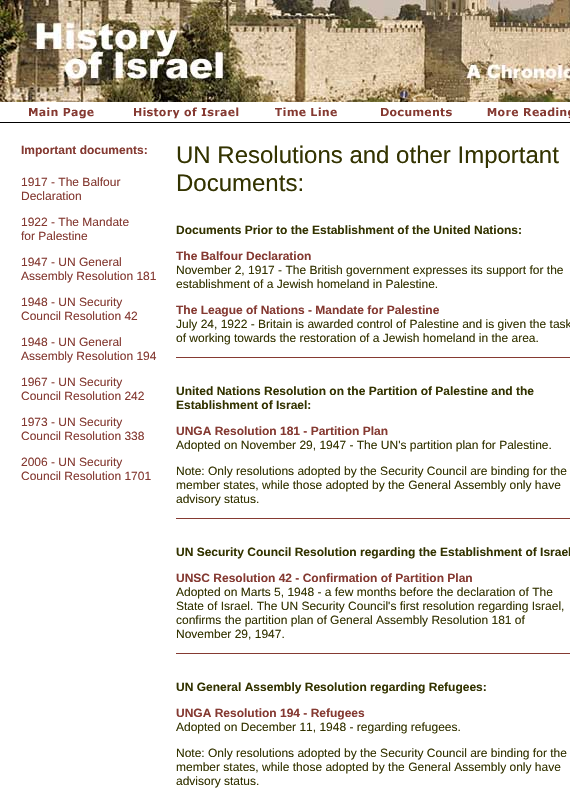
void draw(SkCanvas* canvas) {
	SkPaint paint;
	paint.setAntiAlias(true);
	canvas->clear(0xffffffff);
	canvas->drawImageRect(SkImages::DeferredFromEncodedData(SkData::MakeFromFileName("img1.png")), SkRect::MakeXYWH(0, 0, 570, 102), SkSamplingOptions());
	canvas->drawImageRect(SkImages::DeferredFromEncodedData(SkData::MakeFromFileName("img2.png")), SkRect::MakeXYWH(29, 107, 65, 12), SkSamplingOptions());
	canvas->drawImageRect(SkImages::DeferredFromEncodedData(SkData::MakeFromFileName("img3.png")), SkRect::MakeXYWH(134, 107, 105, 12), SkSamplingOptions());
	canvas->drawImageRect(SkImages::DeferredFromEncodedData(SkData::MakeFromFileName("img4.png")), SkRect::MakeXYWH(275, 107, 62, 10), SkSamplingOptions());
	canvas->drawImageRect(SkImages::DeferredFromEncodedData(SkData::MakeFromFileName("img5.png")), SkRect::MakeXYWH(381, 108, 71, 9), SkSamplingOptions());
	canvas->drawImageRect(SkImages::DeferredFromEncodedData(SkData::MakeFromFileName("img6.png")), SkRect::MakeXYWH(487, 107, 83, 12), SkSamplingOptions());
	paint.setColor(0xff000000);
	canvas->drawRect(SkRect::MakeXYWH(0, 122, 570, 1), paint);
	SkFont f1(fontMgr->matchFamilyStyle("Liberation Sans", SkFontStyle::Bold()), 12);
	f1.setSubpixel(true);
	paint.setColor(0xff853a32);
	canvas->drawString("Important documents:", 21, 154, f1, paint);
	SkFont f2(fontMgr->matchFamilyStyle("Liberation Sans", SkFontStyle::Normal()), 12);
	f2.setSubpixel(true);
	canvas->drawString("1917 - The Balfour", 21, 186, f2, paint);
	canvas->drawString("Declaration", 21, 200, f2, paint);
	canvas->drawString("1922 - The Mandate", 21, 226, f2, paint);
	canvas->drawString("for Palestine", 21, 240, f2, paint);
	canvas->drawString("1947 - UN General", 21, 266, f2, paint);
	canvas->drawString("Assembly Resolution 181", 21, 280, f2, paint);
	canvas->drawString("1948 - UN Security", 21, 306, f2, paint);
	canvas->drawString("Council Resolution 42", 21, 320, f2, paint);
	canvas->drawString("1948 - UN General", 21, 346, f2, paint);
	canvas->drawString("Assembly Resolution 194", 21, 360, f2, paint);
	canvas->drawString("1967 - UN Security", 21, 386, f2, paint);
	canvas->drawString("Council Resolution 242", 21, 400, f2, paint);
	canvas->drawString("1973 - UN Security", 21, 426, f2, paint);
	canvas->drawString("Council Resolution 338", 21, 440, f2, paint);
	canvas->drawString("2006 - UN Security", 21, 466, f2, paint);
	canvas->drawString("Council Resolution 1701", 21, 480, f2, paint);
	SkFont f3(fontMgr->matchFamilyStyle("Liberation Sans", SkFontStyle::Normal()), 24);
	f3.setSubpixel(true);
	paint.setColor(0xff333300);
	canvas->drawString("UN Resolutions and other Important", 176, 163, f3, paint);
	canvas->drawString("Documents:", 176, 191, f3, paint);
	canvas->drawString("Documents Prior to the Establishment of the United Nations:", 176, 234, f1, paint);
	paint.setColor(0xff853a32);
	canvas->drawString("The Balfour Declaration", 176, 260, f1, paint);
	paint.setColor(0xff333300);
	canvas->drawString("November 2, 1917 - The British government expresses its support for the", 176, 274, f2, paint);
	canvas->drawString("establishment of a Jewish homeland in Palestine.", 176, 288, f2, paint);
	paint.setColor(0xff853a32);
	canvas->drawString("The League of Nations - Mandate for Palestine", 176, 314, f1, paint);
	paint.setColor(0xff333300);
	canvas->drawString("July 24, 1922 - Britain is awarded control of Palestine and is given the task", 176, 328, f2, paint);
	canvas->drawString("of working towards the restoration of a Jewish homeland in the area.", 176, 342, f2, paint);
	paint.setColor(0xff853a32);
	canvas->drawRect(SkRect::MakeXYWH(176, 357, 394, 1), paint);
	paint.setColor(0xff333300);
	canvas->drawString("United Nations Resolution on the Partition of Palestine and the", 176, 395, f1, paint);
	canvas->drawString("Establishment of Israel:", 176, 409, f1, paint);
	paint.setColor(0xff853a32);
	canvas->drawString("UNGA Resolution 181 - Partition Plan", 176, 435, f1, paint);
	paint.setColor(0xff333300);
	canvas->drawString("Adopted on November 29, 1947 - The UN's partition plan for Palestine.", 176, 449, f2, paint);
	canvas->drawString("Note: Only resolutions adopted by the Security Council are binding for the", 176, 475, f2, paint);
	canvas->drawString("member states, while those adopted by the General Assembly only have", 176, 489, f2, paint);
	canvas->drawString("advisory status.", 176, 503, f2, paint);
	paint.setColor(0xff853a32);
	canvas->drawRect(SkRect::MakeXYWH(176, 518, 394, 1), paint);
	paint.setColor(0xff333300);
	canvas->drawString("UN Security Council Resolution regarding the Establishment of Israel", 176, 556, f1, paint);
	paint.setColor(0xff853a32);
	canvas->drawString("UNSC Resolution 42 - Confirmation of Partition Plan", 176, 582, f1, paint);
	paint.setColor(0xff333300);
	canvas->drawString("Adopted on Marts 5, 1948 - a few months before the declaration of The", 176, 596, f2, paint);
	canvas->drawString("State of Israel. The UN Security Council's first resolution regarding Israel,", 176, 610, f2, paint);
	canvas->drawString("confirms the partition plan of General Assembly Resolution 181 of", 176, 624, f2, paint);
	canvas->drawString("November 29, 1947.", 176, 638, f2, paint);
	paint.setColor(0xff853a32);
	canvas->drawRect(SkRect::MakeXYWH(176, 653, 394, 1), paint);
	paint.setColor(0xff333300);
	canvas->drawString("UN General Assembly Resolution regarding Refugees:", 176, 691, f1, paint);
	paint.setColor(0xff853a32);
	canvas->drawString("UNGA Resolution 194 - Refugees", 176, 717, f1, paint);
	paint.setColor(0xff333300);
	canvas->drawString("Adopted on December 11, 1948 - regarding refugees.", 176, 731, f2, paint);
	canvas->drawString("Note: Only resolutions adopted by the Security Council are binding for the", 176, 757, f2, paint);
	canvas->drawString("member states, while those adopted by the General Assembly only have", 176, 771, f2, paint);
	canvas->drawString("advisory status.", 176, 785, f2, paint);
}
